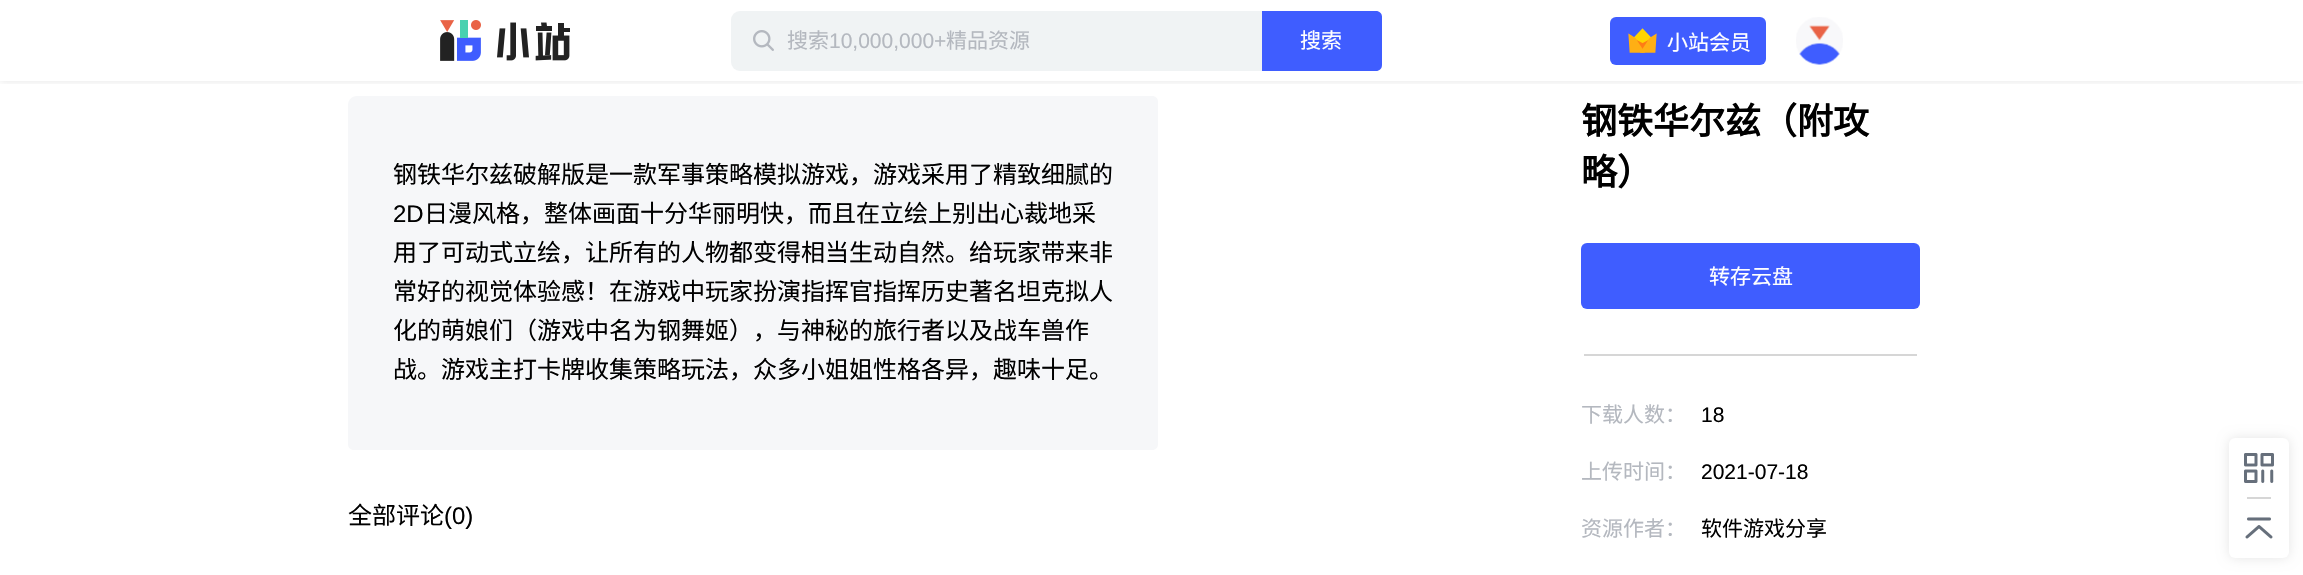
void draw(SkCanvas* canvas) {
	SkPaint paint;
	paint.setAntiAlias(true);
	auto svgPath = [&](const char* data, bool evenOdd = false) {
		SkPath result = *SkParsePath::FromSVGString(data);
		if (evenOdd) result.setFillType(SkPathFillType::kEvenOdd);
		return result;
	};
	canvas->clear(0xffffffff);
	canvas->save();
	canvas->clipRect(SkRect::MakeXYWH(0, 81, 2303, 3));
	paint.setColor(0x1a000000);
	paint.setMaskFilter(SkMaskFilter::MakeBlur(kNormal_SkBlurStyle, 4));
	canvas->drawRect(SkRect::MakeXYWH(0, 0, 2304, 81), paint);
	paint.setMaskFilter(nullptr);
	canvas->restore();
	canvas->drawImageRect(SkImages::DeferredFromEncodedData(SkData::MakeFromFileName("img1.png")), SkRect::MakeXYWH(440, 20, 130, 41), SkSamplingOptions());
	paint.setColor(0xfff0f3f4);
	canvas->drawRoundRect(SkRect::MakeXYWH(731, 11, 651, 60), 9, 9, paint);
	canvas->drawImageRect(SkImages::DeferredFromEncodedData(SkData::MakeFromFileName("img2.png")), SkRect::MakeXYWH(753, 30, 21, 21), SkSamplingOptions());
	SkFont f1(fontMgr->matchFamilyStyle("Noto Sans CJK SC", SkFontStyle::Normal()), 21);
	f1.setSubpixel(true);
	paint.setColor(0xffb4b8bf);
	canvas->drawString("搜索", 787, 48, f1, paint);
	SkFont f2(fontMgr->matchFamilyStyle("Liberation Sans", SkFontStyle::Normal()), 21);
	f2.setSubpixel(true);
	canvas->drawString("10,000,000+", 829, 48, f2, paint);
	canvas->drawString("精品资源", 946, 48, f1, paint);
	paint.setColor(0xff3f5dff);
	canvas->drawPath(svgPath("M1262 11H1376C1379.5 11 1382 13.5 1382 17V65C1382 68.5 1379.5 71 1376 71H1262Z"), paint);
	paint.setColor(0xffffffff);
	canvas->drawString("搜索", 1300, 48, f1, paint);
	paint.setColor(0xff3f5dff);
	canvas->drawRoundRect(SkRect::MakeXYWH(1610, 17, 156, 48), 6, 6, paint);
	canvas->drawImageRect(SkImages::DeferredFromEncodedData(SkData::MakeFromFileName("img3.png")), SkRect::MakeXYWH(1628, 28, 29, 25), SkSamplingOptions());
	paint.setColor(0xffffffff);
	canvas->drawString("小站会员", 1667, 50, f1, paint);
	canvas->drawImageRect(SkImages::DeferredFromEncodedData(SkData::MakeFromFileName("img4.png")), SkRect::MakeXYWH(1796, 17, 47, 48), SkSamplingOptions());
	paint.setColor(0xfff6f7f9);
	canvas->drawPath(svgPath("M357 96H1152C1155.5 96 1158 98.5 1158 102V444C1158 447.5 1155.5 450 1152 450H354C350.5 450 348 447.5 348 444V105C348 100 352 96 357 96Z"), paint);
	SkFont f3(fontMgr->matchFamilyStyle("Noto Sans CJK SC", SkFontStyle::Normal()), 24);
	f3.setSubpixel(true);
	paint.setColor(0xff000000);
	canvas->drawString("钢铁华尔兹破解版是一款军事策略模拟游戏，游戏采用了精致细腻的", 393, 183, f3, paint);
	SkFont f4(fontMgr->matchFamilyStyle("Liberation Sans", SkFontStyle::Normal()), 24);
	f4.setSubpixel(true);
	canvas->drawString("2D", 393, 222, f4, paint);
	canvas->drawString("日漫风格，整体画面十分华丽明快，而且在立绘上别出心裁地采", 424, 222, f3, paint);
	canvas->drawString("用了可动式立绘，让所有的人物都变得相当生动自然。给玩家带来非", 393, 261, f3, paint);
	canvas->drawString("常好的视觉体验感！在游戏中玩家扮演指挥官指挥历史著名坦克拟人", 393, 300, f3, paint);
	canvas->drawString("化的萌娘们（游戏中名为钢舞姬），与神秘的旅行者以及战车兽作", 393, 339, f3, paint);
	canvas->drawString("战。游戏主打卡牌收集策略玩法，众多小姐姐性格各异，趣味十足。", 393, 378, f3, paint);
	canvas->drawString("全部评论", 348, 524, f3, paint);
	canvas->drawString("(0)", 444, 524, f4, paint);
	SkFont f5(fontMgr->matchFamilyStyle("Noto Sans CJK SC", SkFontStyle::Bold()), 36);
	f5.setSubpixel(true);
	canvas->drawString("钢铁华尔兹（附攻", 1581, 134, f5, paint);
	canvas->drawString("略）", 1581, 185, f5, paint);
	paint.setColor(0xff3f5dff);
	canvas->drawRoundRect(SkRect::MakeXYWH(1581, 243, 339, 66), 6, 6, paint);
	paint.setColor(0xffffffff);
	canvas->drawString("转存云盘", 1709, 284, f1, paint);
	paint.setColor(0xffd6d6d6);
	canvas->drawRect(SkRect::MakeXYWH(1584, 354, 333, 2), paint);
	paint.setColor(0xffb4b8bf);
	canvas->drawString("下载人数：", 1581, 422, f1, paint);
	paint.setColor(0xff000000);
	canvas->drawString("18", 1701, 422, f2, paint);
	paint.setColor(0xffb4b8bf);
	canvas->drawString("上传时间：", 1581, 479, f1, paint);
	paint.setColor(0xff000000);
	canvas->drawString("2021-07-18", 1701, 479, f2, paint);
	paint.setColor(0xffb4b8bf);
	canvas->drawString("资源作者：", 1581, 536, f1, paint);
	paint.setColor(0xff000000);
	canvas->drawString("软件游戏分享", 1701, 536, f1, paint);
	paint.setColor(0x1a000000);
	paint.setMaskFilter(SkMaskFilter::MakeBlur(kNormal_SkBlurStyle, 6));
	canvas->drawRoundRect(SkRect::MakeXYWH(2229, 438, 60, 120), 6, 6, paint);
	paint.setMaskFilter(nullptr);
	paint.setColor(0xffffffff);
	canvas->drawRoundRect(SkRect::MakeXYWH(2229, 438, 60, 120), 6, 6, paint);
	canvas->drawImageRect(SkImages::DeferredFromEncodedData(SkData::MakeFromFileName("img5.png")), SkRect::MakeXYWH(2244, 453, 30, 30), SkSamplingOptions());
	paint.setColor(0xffd6d6d6);
	canvas->drawRect(SkRect::MakeXYWH(2247, 497, 24, 2), paint);
	canvas->drawImageRect(SkImages::DeferredFromEncodedData(SkData::MakeFromFileName("img6.png")), SkRect::MakeXYWH(2245, 517, 28, 22), SkSamplingOptions());
}
